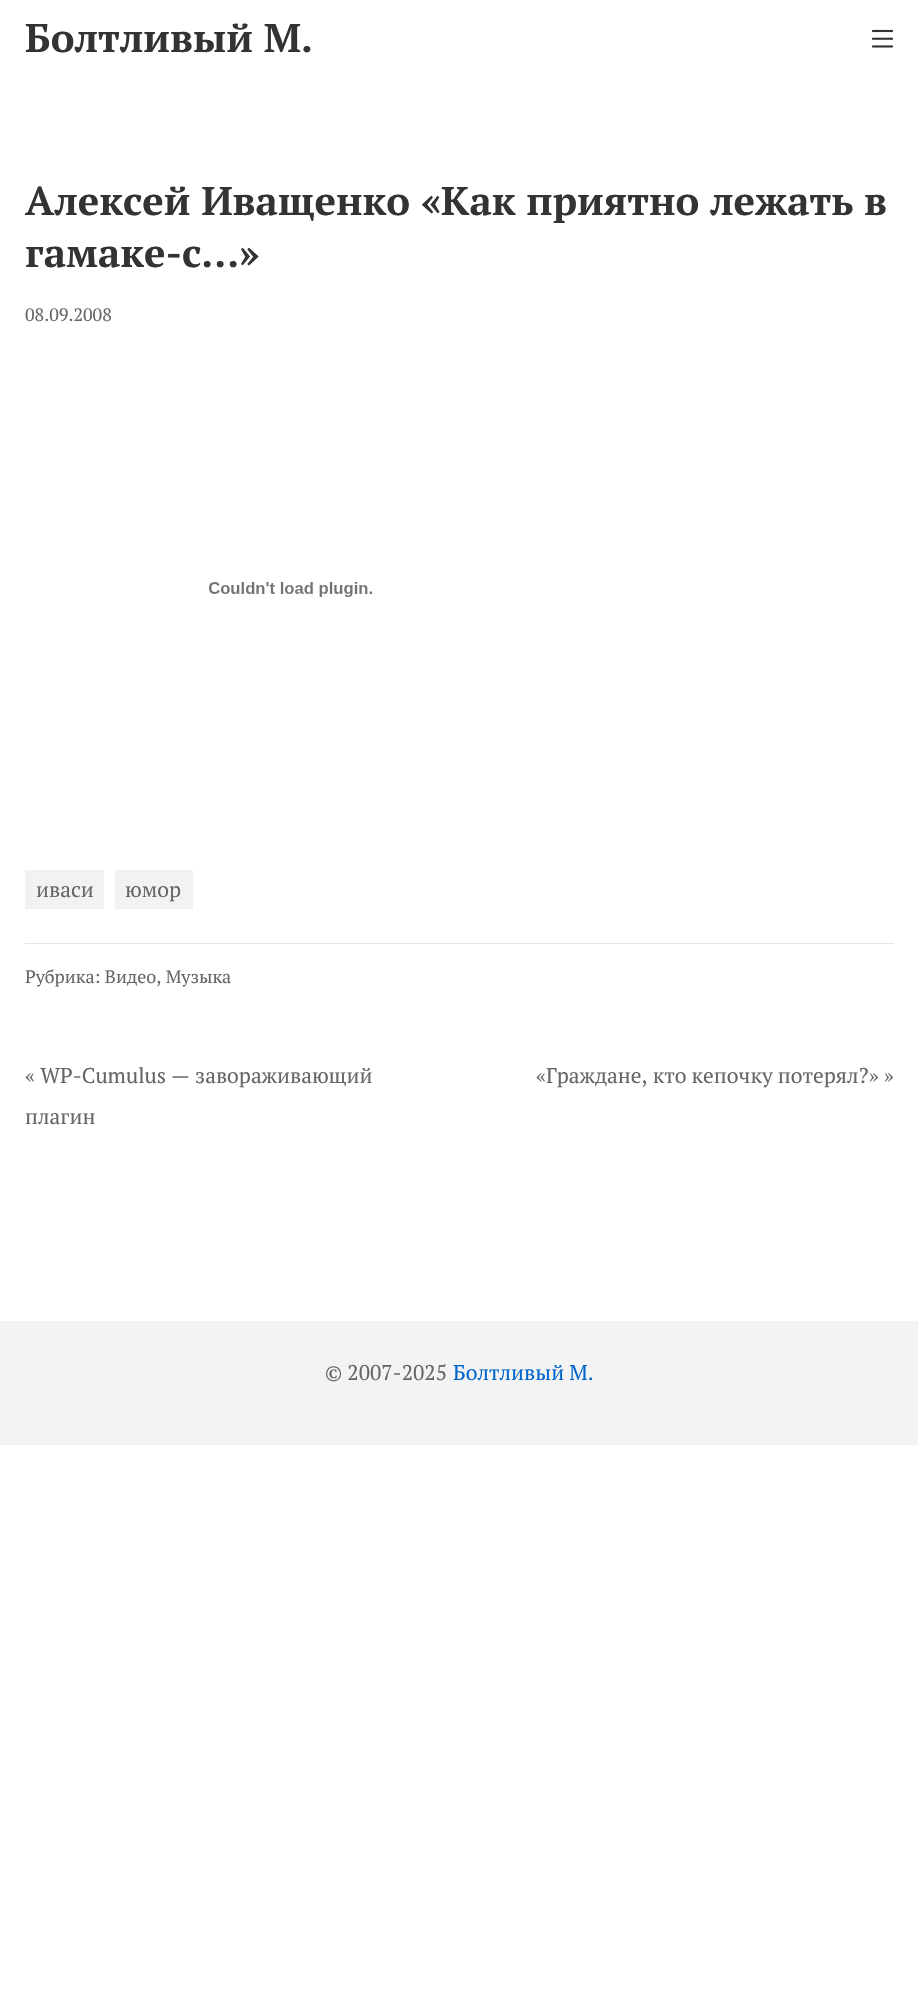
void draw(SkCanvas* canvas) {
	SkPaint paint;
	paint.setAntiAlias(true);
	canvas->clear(0xffffffff);
	SkFont f1(fontMgr->matchFamilyStyle("PT Serif", SkFontStyle::Bold()), 40);
	f1.setSubpixel(true);
	paint.setColor(0xff333333);
	canvas->drawString("Болтливый М.", 25, 52, f1, paint);
	canvas->drawImageRect(SkImages::DeferredFromEncodedData(SkData::MakeFromFileName("img1.png")), SkRect::MakeXYWH(871, 29, 23, 19), SkSamplingOptions());
	canvas->drawString("Алексей Иващенко «Как приятно лежать в", 25, 215, f1, paint);
	canvas->drawString("гамаке-с…»", 25, 267, f1, paint);
	SkFont f2(fontMgr->matchFamilyStyle("PT Serif", SkFontStyle::Normal()), 18);
	f2.setSubpixel(true);
	paint.setColor(0xff666666);
	canvas->drawString("08.09.2008", 25, 321, f2, paint);
	canvas->drawImageRect(SkImages::DeferredFromEncodedData(SkData::MakeFromFileName("img2.png")), SkRect::MakeXYWH(209, 582, 163, 15), SkSamplingOptions());
	paint.setColor(0xfff2f2f2);
	canvas->drawRect(SkRect::MakeXYWH(25, 870, 79, 39), paint);
	SkFont f3(fontMgr->matchFamilyStyle("PT Serif", SkFontStyle::Normal()), 21.25);
	f3.setSubpixel(true);
	paint.setColor(0xff666666);
	canvas->drawString("иваси", 36, 897, f3, paint);
	paint.setColor(0xfff2f2f2);
	canvas->drawRect(SkRect::MakeXYWH(115, 870, 78, 39), paint);
	paint.setColor(0xff666666);
	canvas->drawString("юмор", 125, 897, f3, paint);
	paint.setColor(0xffe6e6e6);
	canvas->drawRect(SkRect::MakeXYWH(25, 943, 869, 1), paint);
	paint.setColor(0xff666666);
	canvas->drawString("Рубрика: Видео, Музыка", 25, 983, f2, paint);
	canvas->drawString("« WP-Cumulus — завораживающий", 25, 1083, f3, paint);
	canvas->drawString("плагин", 25, 1124, f3, paint);
	canvas->drawString("«Граждане, кто кепочку потерял?» »", 536, 1083, f3, paint);
	paint.setColor(0xfff3f3f3);
	canvas->drawRect(SkRect::MakeXYWH(0, 1321, 918, 124), paint);
	paint.setColor(0xff666666);
	canvas->drawString("© 2007-2025", 325, 1380, f3, paint);
	paint.setColor(0xff0066cc);
	canvas->drawString("Болтливый М.", 453, 1380, f3, paint);
}
